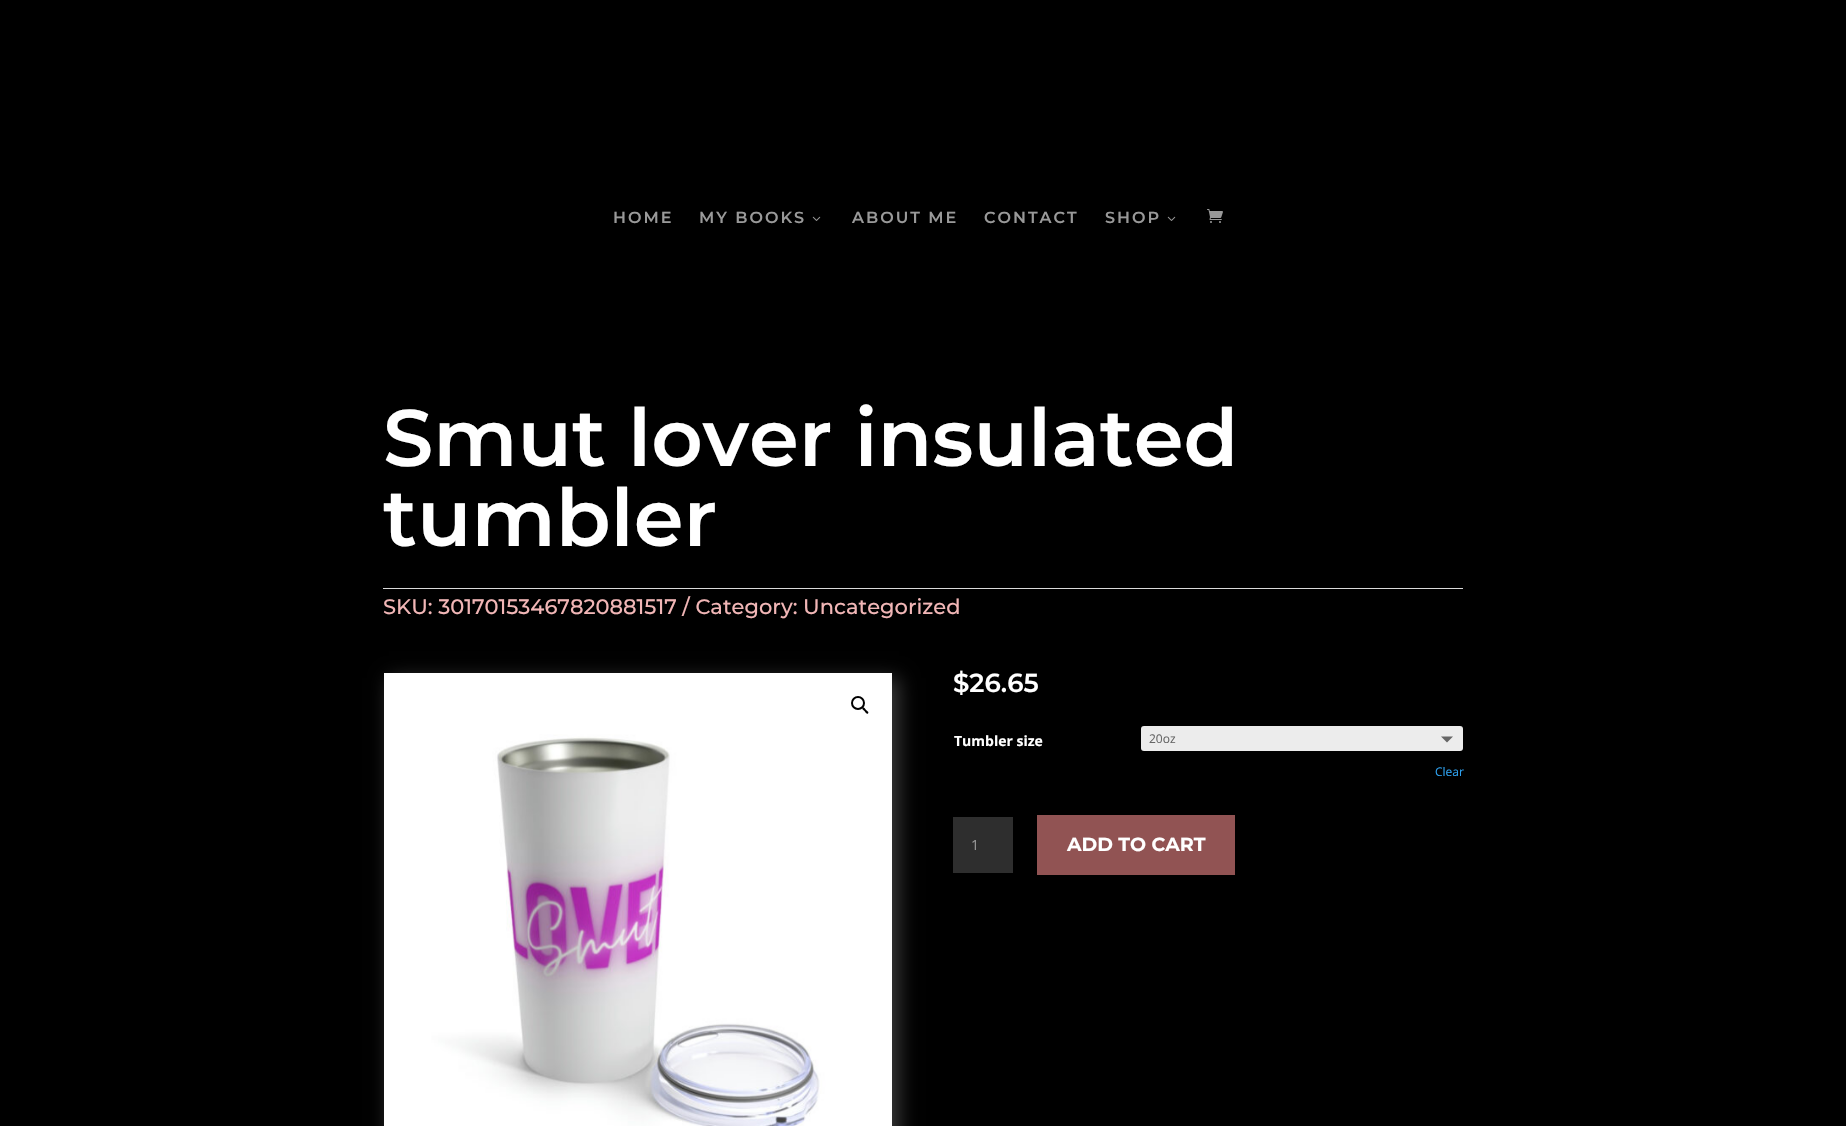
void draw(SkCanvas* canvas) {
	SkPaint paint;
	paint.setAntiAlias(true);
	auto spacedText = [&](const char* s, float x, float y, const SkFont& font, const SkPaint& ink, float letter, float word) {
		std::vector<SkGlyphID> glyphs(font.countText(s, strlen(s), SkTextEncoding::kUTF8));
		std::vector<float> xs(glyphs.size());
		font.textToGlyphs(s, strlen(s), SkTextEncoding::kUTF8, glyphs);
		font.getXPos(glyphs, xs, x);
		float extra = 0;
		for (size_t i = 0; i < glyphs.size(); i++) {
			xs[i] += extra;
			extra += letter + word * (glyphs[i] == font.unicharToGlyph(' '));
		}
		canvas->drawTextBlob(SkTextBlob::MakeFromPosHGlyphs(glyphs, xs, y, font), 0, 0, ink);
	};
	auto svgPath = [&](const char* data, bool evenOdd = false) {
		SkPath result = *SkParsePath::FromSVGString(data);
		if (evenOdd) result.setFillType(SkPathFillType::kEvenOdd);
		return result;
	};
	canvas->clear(0xff000000);
	SkFont f1(fontMgr->matchFamilyStyle("Montserrat", SkFontStyle(100, SkFontStyle::kNormal_Width, SkFontStyle::kUpright_Slant)), 16);
	f1.setSubpixel(true);
	paint.setColor(0xff999999);
	spacedText("HOME", 613, 223, f1, paint, 2, 0);
	spacedText("MY BOOKS", 699, 223, f1, paint, 2, 0);
	canvas->drawImageRect(SkImages::DeferredFromEncodedData(SkData::MakeFromFileName("img1.png")), SkRect::MakeXYWH(812, 216, 9, 5), SkSamplingOptions());
	spacedText("ABOUT ME", 852, 223, f1, paint, 2, 0);
	spacedText("CONTACT", 984, 223, f1, paint, 2, 0);
	spacedText("SHOP", 1105, 223, f1, paint, 2, 0);
	canvas->drawImageRect(SkImages::DeferredFromEncodedData(SkData::MakeFromFileName("img1.png")), SkRect::MakeXYWH(1167, 216, 9, 5), SkSamplingOptions());
	canvas->drawImageRect(SkImages::DeferredFromEncodedData(SkData::MakeFromFileName("img2.png")), SkRect::MakeXYWH(1207, 209, 16, 14), SkSamplingOptions());
	SkFont f2(fontMgr->matchFamilyStyle("Montserrat", SkFontStyle(100, SkFontStyle::kNormal_Width, SkFontStyle::kUpright_Slant)), 80);
	f2.setSubpixel(true);
	paint.setColor(0xffffffff);
	canvas->drawString("Smut lover insulated", 383, 466, f2, paint);
	canvas->drawString("tumbler", 383, 546, f2, paint);
	paint.setColor(0xffdadada);
	canvas->drawRect(SkRect::MakeXYWH(383, 588, 1080, 1), paint);
	SkFont f3(fontMgr->matchFamilyStyle("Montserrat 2", SkFontStyle(100, SkFontStyle::kNormal_Width, SkFontStyle::kUpright_Slant)), 21);
	f3.setSubpixel(true);
	paint.setColor(0xfff1b6b6);
	canvas->drawString("SKU: 30170153467820881517 / Category: Uncategorized", 383, 614, f3, paint);
	paint.setColor(0x63969696);
	paint.setMaskFilter(SkMaskFilter::MakeBlur(kNormal_SkBlurStyle, 9));
	canvas->drawRect(SkRect::MakeXYWH(389, 678, 510, 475), paint);
	paint.setMaskFilter(nullptr);
	canvas->drawImageRect(SkImages::DeferredFromEncodedData(SkData::MakeFromFileName("img3.png")), SkRect::MakeXYWH(384, 673, 508, 453), SkSamplingOptions());
	paint.setStroke(true);
	paint.setStrokeWidth(2);
	paint.setColor(0xff000000);
	canvas->drawCircle(858, 703, 6, paint);
	paint.setStroke(false);
	canvas->drawPath(svgPath("M862.5 707.5C863.5 706.5 865.5 709 866 710C866.5 710.5 869.5 712 868 713.5C867 714.5 865 712 864.5 711C864 710.5 861.5 709 862.5 707.5Z"), paint);
	SkFont f4(fontMgr->matchFamilyStyle("Montserrat", SkFontStyle(100, SkFontStyle::kNormal_Width, SkFontStyle::kUpright_Slant)), 26);
	f4.setSubpixel(true);
	paint.setColor(0xffffffff);
	canvas->drawString("$26.65", 953, 692, f4, paint);
	SkFont f5(fontMgr->matchFamilyStyle("Open Sans", SkFontStyle::Bold()), 14);
	f5.setSubpixel(true);
	canvas->drawString("Tumbler size", 954, 746, f5, paint);
	paint.setColor(0xffececec);
	canvas->drawRoundRect(SkRect::MakeXYWH(1141, 726, 322, 25), 3, 3, paint);
	SkFont f6(fontMgr->matchFamilyStyle("Open Sans", SkFontStyle::Normal()), 12);
	f6.setSubpixel(true);
	paint.setColor(0xff666666);
	canvas->drawString("20oz", 1149, 743, f6, paint);
	canvas->drawPath(svgPath("M1441 736.5H1453L1447 742.5Z"), paint);
	paint.setColor(0xff2ea3f2);
	canvas->drawString("Clear", 1435, 776, f6, paint);
	paint.setColor(0xff2e2e2e);
	canvas->drawRect(SkRect::MakeXYWH(953, 817, 60, 56), paint);
	SkFont f7(fontMgr->matchFamilyStyle("Open Sans", SkFontStyle::Normal()), 14);
	f7.setSubpixel(true);
	paint.setColor(0xff999999);
	canvas->drawString("1", 971, 850, f7, paint);
	paint.setColor(0xff915353);
	canvas->drawRect(SkRect::MakeXYWH(1037, 815, 198, 60), paint);
	SkFont f8(fontMgr->matchFamilyStyle("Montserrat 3", SkFontStyle(100, SkFontStyle::kNormal_Width, SkFontStyle::kUpright_Slant)), 19);
	f8.setSubpixel(true);
	paint.setColor(0xffffffff);
	canvas->drawString("ADD TO CART", 1067, 851, f8, paint);
}
